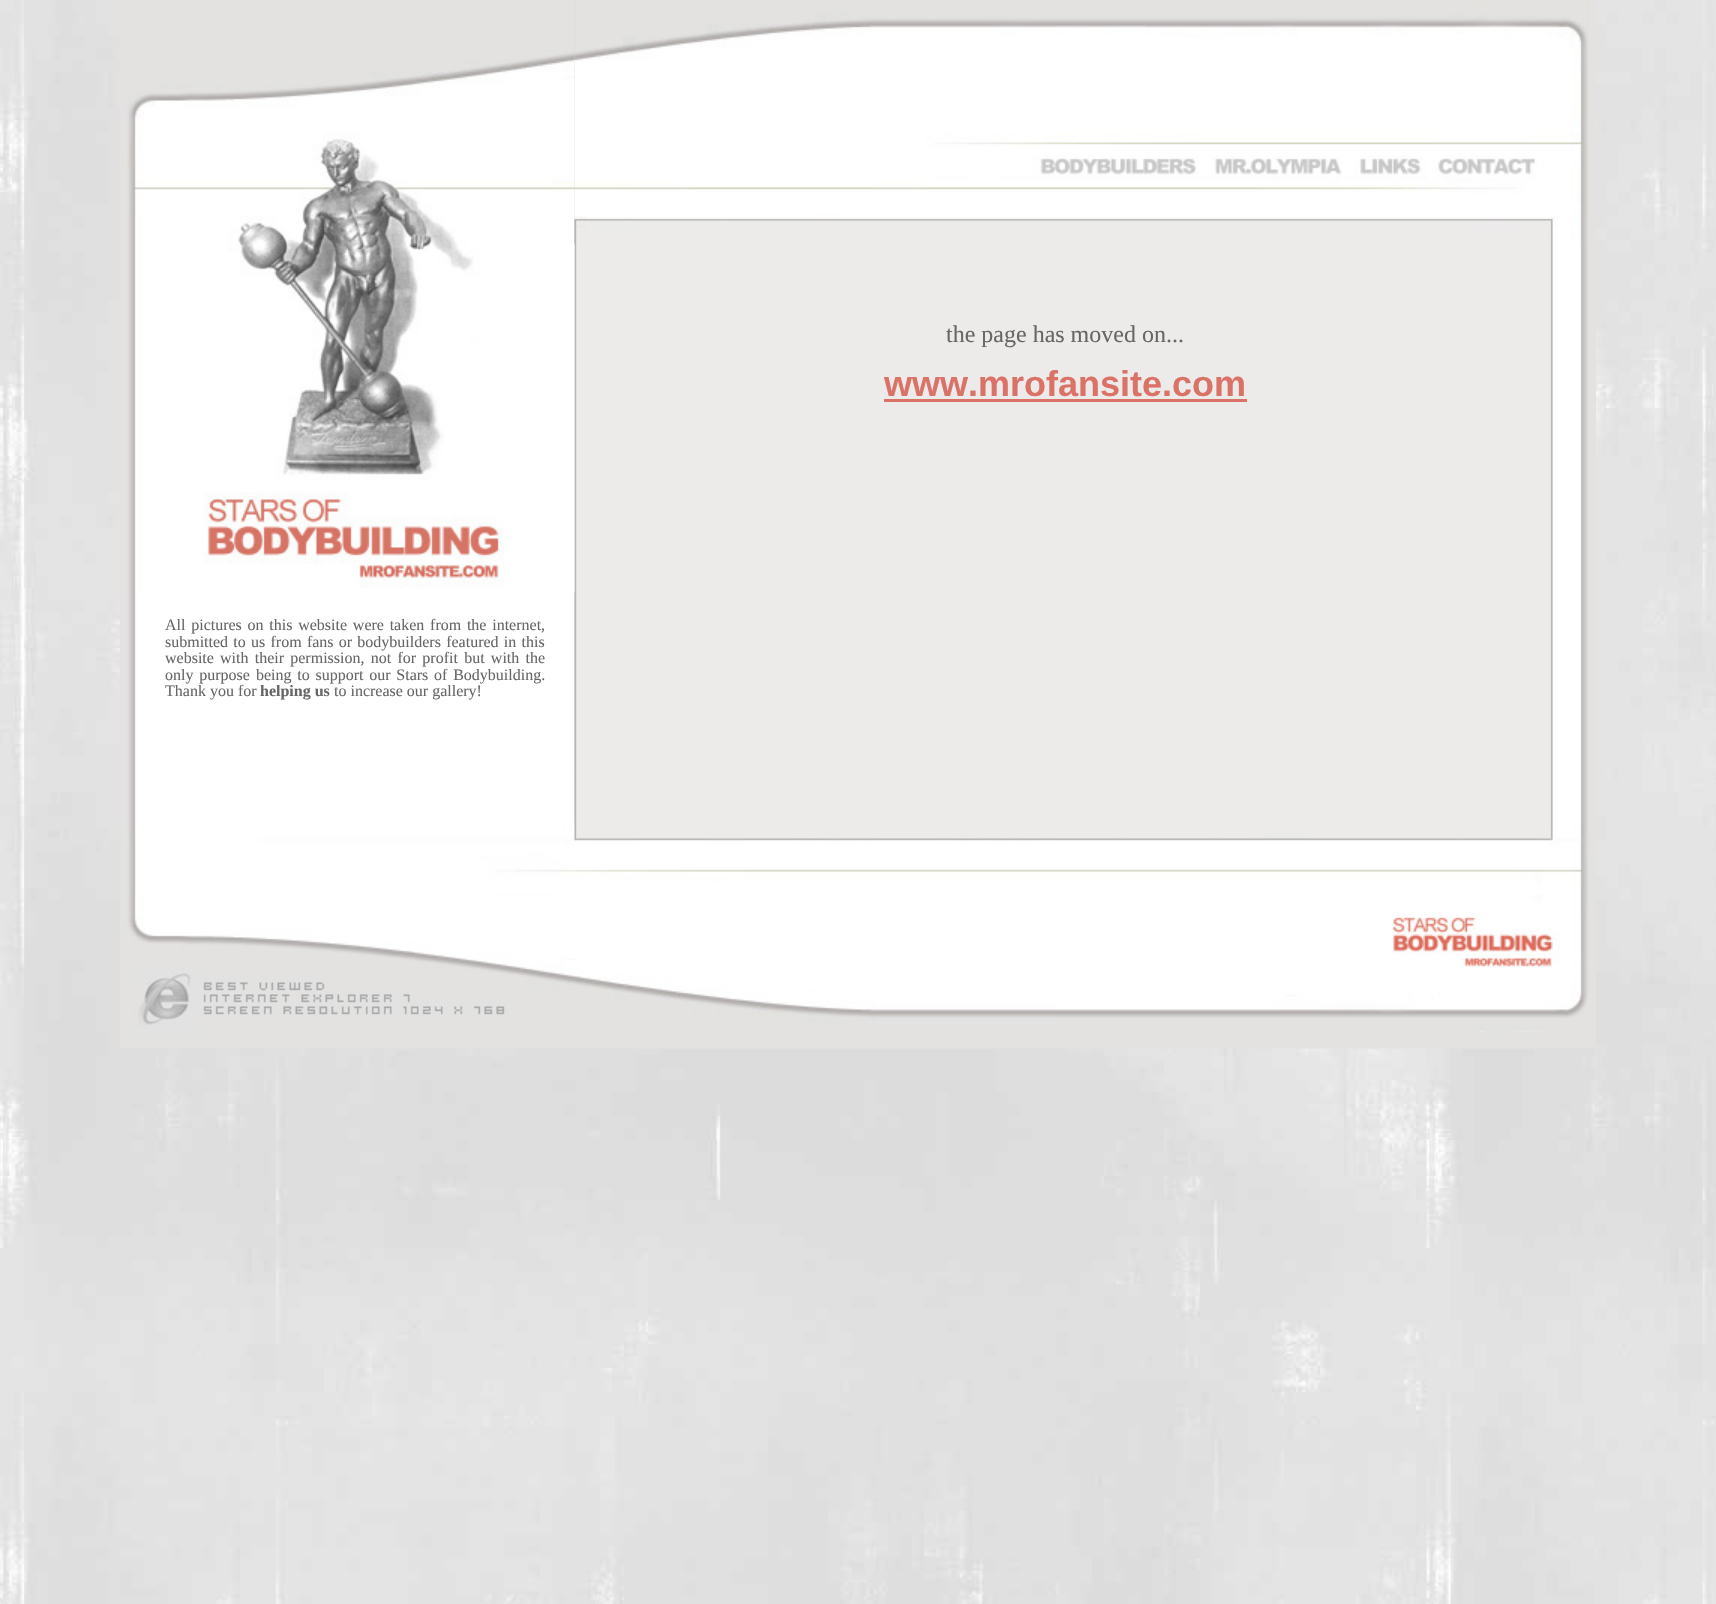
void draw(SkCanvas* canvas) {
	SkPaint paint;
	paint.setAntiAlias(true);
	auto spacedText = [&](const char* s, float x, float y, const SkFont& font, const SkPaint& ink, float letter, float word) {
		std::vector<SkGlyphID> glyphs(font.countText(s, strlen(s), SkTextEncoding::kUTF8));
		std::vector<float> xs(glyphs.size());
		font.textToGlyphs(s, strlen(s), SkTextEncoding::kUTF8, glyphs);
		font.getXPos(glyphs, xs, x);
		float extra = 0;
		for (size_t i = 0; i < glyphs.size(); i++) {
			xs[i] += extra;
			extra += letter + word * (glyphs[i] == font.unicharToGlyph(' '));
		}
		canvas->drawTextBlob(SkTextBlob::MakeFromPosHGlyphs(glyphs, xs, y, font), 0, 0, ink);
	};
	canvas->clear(0xffffffff);
	canvas->drawImageRect(SkImages::DeferredFromEncodedData(SkData::MakeFromFileName("img1.png")), SkRect::MakeXYWH(0, 0, 1716, 1604), SkSamplingOptions());
	canvas->drawImageRect(SkImages::DeferredFromEncodedData(SkData::MakeFromFileName("img4.png")), SkRect::MakeXYWH(120, 0, 455, 822), SkSamplingOptions());
	canvas->drawImageRect(SkImages::DeferredFromEncodedData(SkData::MakeFromFileName("img2.png")), SkRect::MakeXYWH(574, 0, 1022, 822), SkSamplingOptions());
	canvas->drawImageRect(SkImages::DeferredFromEncodedData(SkData::MakeFromFileName("img5.png")), SkRect::MakeXYWH(127, 0, 448, 593), SkSamplingOptions());
	canvas->drawImageRect(SkImages::DeferredFromEncodedData(SkData::MakeFromFileName("img3.png")), SkRect::MakeXYWH(574, 0, 1014, 245), SkSamplingOptions());
	SkFont f1(fontMgr->matchFamilyStyle("Liberation Serif", SkFontStyle::Normal()), 24);
	f1.setSubpixel(true);
	paint.setColor(0xff666666);
	canvas->drawString("the page has moved on...", 946, 342, f1, paint);
	SkFont f2(fontMgr->matchFamilyStyle("Liberation Sans", SkFontStyle::Bold()), 36);
	f2.setSubpixel(true);
	paint.setColor(0xffdb7267);
	canvas->drawString("www.mrofansite.com", 884, 396, f2, paint);
	canvas->drawRect(SkRect::MakeXYWH(884, 399, 363, 3), paint);
	SkFont f3(fontMgr->matchFamilyStyle("Liberation Serif", SkFontStyle::Normal()), 16);
	f3.setSubpixel(true);
	paint.setColor(0xff666666);
	spacedText("All pictures on this website were taken from the internet,", 165, 630, f3, paint, 0, 1.75);
	spacedText("submitted to us from fans or bodybuilders featured in this", 165, 647, f3, paint, 0, 1.25);
	canvas->drawString("website", 165, 663, f3, paint);
	spacedText("with their permission, not for profit but with the", 220, 663, f3, paint, 0, 2.25);
	spacedText("only purpose", 165, 680, f3, paint, 0, 1.75);
	spacedText("being to support our Stars of Bodybuilding.", 256, 680, f3, paint, 0, 1.75);
	canvas->drawString("Thank you for", 165, 696, f3, paint);
	SkFont f4(fontMgr->matchFamilyStyle("Liberation Serif", SkFontStyle::Bold()), 16);
	f4.setSubpixel(true);
	canvas->drawString("helping us", 260, 696, f4, paint);
	canvas->drawString("to increase our gallery!", 334, 696, f3, paint);
	canvas->drawImageRect(SkImages::DeferredFromEncodedData(SkData::MakeFromFileName("img6.png")), SkRect::MakeXYWH(120, 822, 1476, 227), SkSamplingOptions());
}
